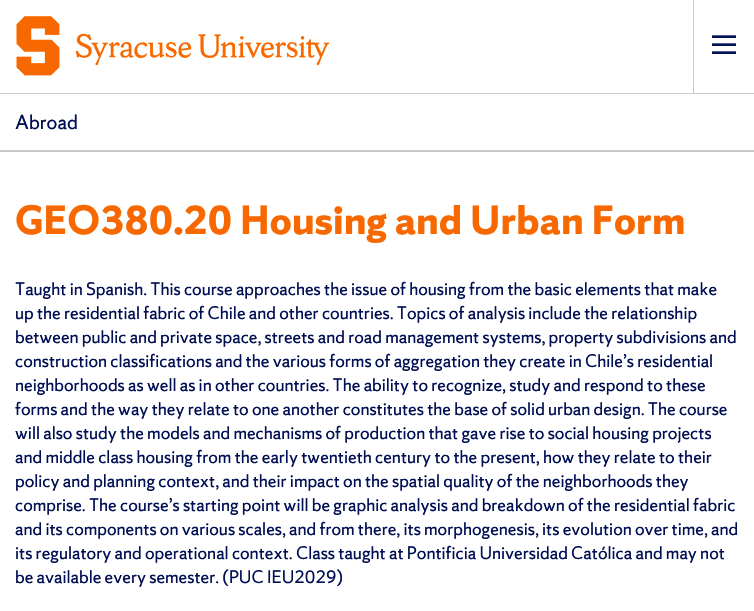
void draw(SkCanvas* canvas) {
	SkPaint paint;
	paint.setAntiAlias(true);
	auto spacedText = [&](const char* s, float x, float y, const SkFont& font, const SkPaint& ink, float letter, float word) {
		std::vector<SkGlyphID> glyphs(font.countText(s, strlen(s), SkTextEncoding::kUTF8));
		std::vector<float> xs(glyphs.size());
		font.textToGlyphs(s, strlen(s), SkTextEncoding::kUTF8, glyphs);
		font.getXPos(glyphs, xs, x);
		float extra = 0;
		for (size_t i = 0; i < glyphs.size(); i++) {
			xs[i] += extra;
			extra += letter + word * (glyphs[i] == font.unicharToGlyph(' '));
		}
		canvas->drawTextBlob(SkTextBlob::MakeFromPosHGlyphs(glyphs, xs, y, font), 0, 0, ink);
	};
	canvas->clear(0xffffffff);
	paint.setColor(0xffc6cacd);
	canvas->drawRect(SkRect::MakeXYWH(693, 93, 61, 1), paint);
	canvas->drawRect(SkRect::MakeXYWH(693, 0, 1, 93), paint);
	canvas->drawImageRect(SkImages::DeferredFromEncodedData(SkData::MakeFromFileName("img1.png")), SkRect::MakeXYWH(712, 35, 24, 19), SkSamplingOptions());
	canvas->drawImageRect(SkImages::DeferredFromEncodedData(SkData::MakeFromFileName("img2.png")), SkRect::MakeXYWH(16, 16, 313, 60), SkSamplingOptions());
	paint.setColor(0xffcccccc);
	canvas->drawRect(SkRect::MakeXYWH(0, 93, 693, 1), paint);
	SkFont f1(fontMgr->matchFamilyStyle("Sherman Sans", SkFontStyle::Normal()), 18);
	f1.setSubpixel(true);
	paint.setColor(0xff000e54);
	canvas->drawString("Abroad", 15, 129, f1, paint);
	paint.setColor(0xffc6cacd);
	canvas->drawRect(SkRect::MakeXYWH(0, 150, 754, 2), paint);
	SkFont f2(fontMgr->matchFamilyStyle("Sherman Sans", SkFontStyle::Bold()), 36);
	f2.setSubpixel(true);
	paint.setColor(0xfff76900);
	spacedText("GEO380.20 Housing and Urban Form", 15, 234, f2, paint, 0.5, 0);
	SkFont f3(fontMgr->matchFamilyStyle("Sherman Sans", SkFontStyle::Normal()), 16);
	f3.setSubpixel(true);
	paint.setColor(0xff000e54);
	canvas->drawString("Taught in Spanish. This course approaches the issue of housing from the basic elements that make", 15, 295, f3, paint);
	canvas->drawString("up the residential fabric of Chile and other countries. Topics of analysis include the relationship", 15, 319, f3, paint);
	canvas->drawString("between public and private space, streets and road management systems, property subdivisions and", 15, 343, f3, paint);
	canvas->drawString("construction classifications and the various forms of aggregation they create in Chile’s residential", 15, 367, f3, paint);
	canvas->drawString("neighborhoods as well as in other countries. The ability to recognize, study and respond to these", 15, 391, f3, paint);
	canvas->drawString("forms and the way they relate to one another constitutes the base of solid urban design. The course", 15, 415, f3, paint);
	canvas->drawString("will also study the models and mechanisms of production that gave rise to social housing projects", 15, 439, f3, paint);
	canvas->drawString("and middle class housing from the early twentieth century to the present, how they relate to their", 15, 463, f3, paint);
	canvas->drawString("policy and planning context, and their impact on the spatial quality of the neighborhoods they", 15, 487, f3, paint);
	canvas->drawString("comprise. The course’s starting point will be graphic analysis and breakdown of the residential fabric", 15, 511, f3, paint);
	canvas->drawString("and its components on various scales, and from there, its morphogenesis, its evolution over time, and", 15, 535, f3, paint);
	canvas->drawString("its regulatory and operational context. Class taught at Pontificia Universidad Católica and may not", 15, 559, f3, paint);
	canvas->drawString("be available every semester. (PUC IEU2029)", 15, 583, f3, paint);
}
